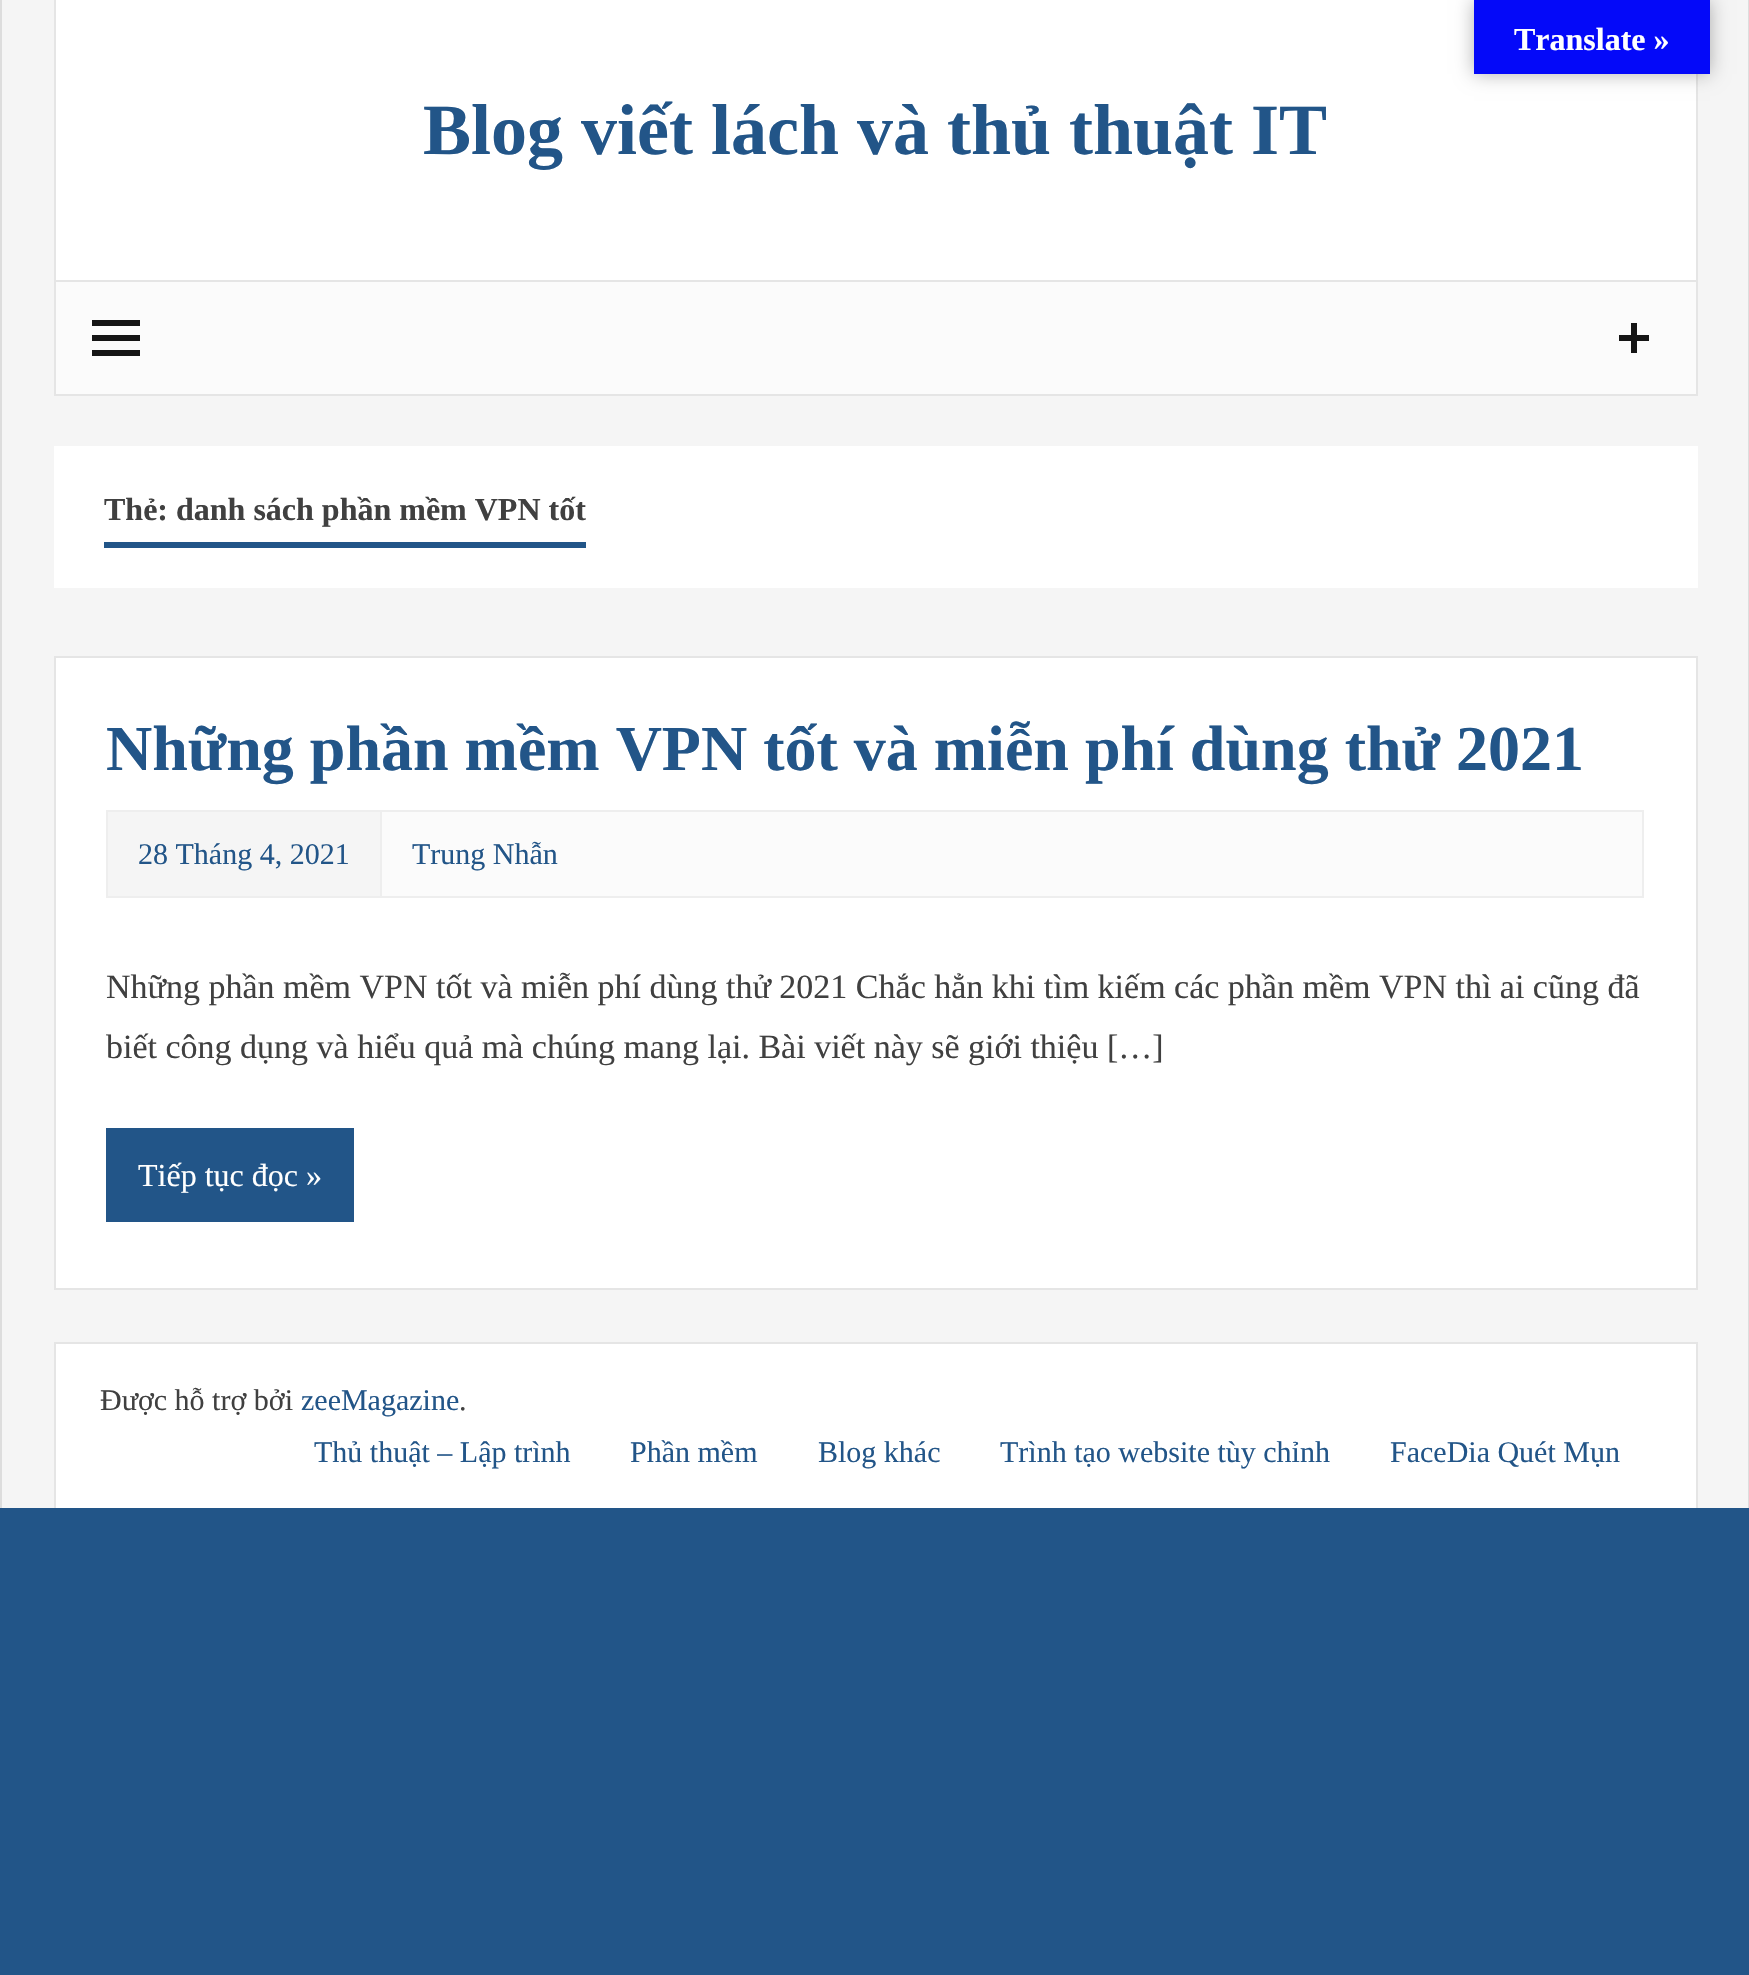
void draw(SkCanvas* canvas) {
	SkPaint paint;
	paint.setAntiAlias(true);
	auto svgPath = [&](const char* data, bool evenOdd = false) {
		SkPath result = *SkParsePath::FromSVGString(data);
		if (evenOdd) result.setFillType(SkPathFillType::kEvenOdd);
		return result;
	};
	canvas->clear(0xff225588);
	paint.setColor(0xfff5f5f5);
	canvas->drawRect(SkRect::MakeXYWH(2, 0, 1746, 1508), paint);
	paint.setColor(0xffffffff);
	canvas->drawRect(SkRect::MakeXYWH(56, 0, 1640, 280), paint);
	paint.setColor(0xffe5e5e5);
	canvas->drawRect(SkRect::MakeXYWH(1696, 74, 2, 322), paint);
	paint.setColor(0x4d000000);
	paint.setMaskFilter(SkMaskFilter::MakeBlur(kNormal_SkBlurStyle, 9));
	canvas->drawRect(SkRect::MakeXYWH(1474, 0, 236, 74), paint);
	paint.setMaskFilter(nullptr);
	paint.setColor(0xff0409f9);
	canvas->drawRect(SkRect::MakeXYWH(1474, 0, 236, 74), paint);
	SkFont f1(fontMgr->matchFamilyStyle("Liberation Serif", SkFontStyle::Bold()), 32);
	f1.setSubpixel(true);
	paint.setColor(0xffffffff);
	canvas->drawString("Translate »", 1514, 50, f1, paint);
	paint.setColor(0xffdddddd);
	canvas->drawRect(SkRect::MakeXYWH(1748, 0, 1, 1508), paint);
	canvas->drawRect(SkRect::MakeXYWH(0, 0, 2, 1508), paint);
	paint.setColor(0xffe5e5e5);
	canvas->drawRect(SkRect::MakeXYWH(54, 280, 1644, 2), paint);
	canvas->drawRect(SkRect::MakeXYWH(54, 0, 2, 282), paint);
	SkFont f2(fontMgr->matchFamilyStyle("Liberation Serif", SkFontStyle::Bold()), 72);
	f2.setSubpixel(true);
	paint.setColor(0xff225588);
	canvas->drawString("Blog viết lách và thủ thuật IT", 423, 154, f2, paint);
	paint.setColor(0xfffbfbfb);
	canvas->drawRect(SkRect::MakeXYWH(56, 282, 1640, 112), paint);
	paint.setColor(0xffe5e5e5);
	canvas->drawRect(SkRect::MakeXYWH(54, 394, 1644, 2), paint);
	canvas->drawRect(SkRect::MakeXYWH(54, 282, 2, 114), paint);
	paint.setColor(0xff151515);
	canvas->drawPath(svgPath("M92 356V350H140V356ZM92 320H140V326H92ZM92 341V335H140V341Z"), paint);
	canvas->drawImageRect(SkImages::DeferredFromEncodedData(SkData::MakeFromFileName("img1.png")), SkRect::MakeXYWH(1619, 323, 30, 30), SkSamplingOptions());
	paint.setColor(0xffffffff);
	canvas->drawRect(SkRect::MakeXYWH(54, 446, 1644, 142), paint);
	paint.setColor(0xff225588);
	canvas->drawRect(SkRect::MakeXYWH(104, 542, 482, 6), paint);
	paint.setColor(0xff404040);
	canvas->drawString("Thẻ: danh sách phần mềm VPN tốt", 104, 520, f1, paint);
	paint.setColor(0xffffffff);
	canvas->drawRect(SkRect::MakeXYWH(55, 657, 1642, 632), paint);
	paint.setStroke(true);
	paint.setStrokeWidth(2);
	paint.setColor(0xffe5e5e5);
	canvas->drawRect(SkRect::MakeXYWH(55, 657, 1642, 632), paint);
	SkFont f3(fontMgr->matchFamilyStyle("Liberation Serif", SkFontStyle::Bold()), 64);
	f3.setSubpixel(true);
	paint.setStroke(false);
	paint.setColor(0xff225588);
	canvas->drawString("Những phần mềm VPN tốt và miễn phí dùng thử 2021", 106, 770, f3, paint);
	paint.setColor(0xfffbfbfb);
	canvas->drawRect(SkRect::MakeXYWH(382, 812, 1260, 84), paint);
	paint.setStroke(true);
	paint.setColor(0xffeeeeee);
	canvas->drawRect(SkRect::MakeXYWH(107, 811, 1536, 86), paint);
	paint.setStroke(false);
	paint.setColor(0xfff5f5f5);
	canvas->drawRect(SkRect::MakeXYWH(108, 812, 272, 84), paint);
	paint.setColor(0xffeeeeee);
	canvas->drawRect(SkRect::MakeXYWH(380, 812, 2, 84), paint);
	SkFont f4(fontMgr->matchFamilyStyle("Liberation Serif", SkFontStyle::Normal()), 30);
	f4.setSubpixel(true);
	paint.setColor(0xff225588);
	canvas->drawString("28 Tháng 4, 2021", 138, 864, f4, paint);
	canvas->drawString("Trung Nhẫn", 412, 864, f4, paint);
	SkFont f5(fontMgr->matchFamilyStyle("Liberation Serif", SkFontStyle::Normal()), 34);
	f5.setSubpixel(true);
	paint.setColor(0xff404040);
	canvas->drawString("Những phần mềm VPN tốt và miễn phí dùng thử 2021 Chắc hẳn khi tìm kiếm các phần mềm VPN thì ai cũng đã", 106, 998, f5, paint);
	canvas->drawString("biết công dụng và hiểu quả mà chúng mang lại. Bài viết này sẽ giới thiệu […]", 106, 1058, f5, paint);
	paint.setColor(0xff225588);
	canvas->drawRect(SkRect::MakeXYWH(106, 1128, 248, 94), paint);
	SkFont f6(fontMgr->matchFamilyStyle("Liberation Serif", SkFontStyle::Normal()), 32);
	f6.setSubpixel(true);
	paint.setColor(0xffffffff);
	canvas->drawString("Tiếp tục đọc »", 138, 1186, f6, paint);
	canvas->drawRect(SkRect::MakeXYWH(56, 1344, 1640, 164), paint);
	paint.setColor(0xffe5e5e5);
	canvas->drawRect(SkRect::MakeXYWH(54, 1342, 1644, 2), paint);
	canvas->drawRect(SkRect::MakeXYWH(1696, 1342, 2, 166), paint);
	canvas->drawRect(SkRect::MakeXYWH(54, 1342, 2, 166), paint);
	paint.setColor(0xff404040);
	canvas->drawString("Được hỗ trợ bởi", 100, 1410, f4, paint);
	paint.setColor(0xff225588);
	canvas->drawString("zeeMagazine", 301, 1410, f4, paint);
	paint.setColor(0xff404040);
	canvas->drawString(".", 459, 1410, f4, paint);
	paint.setColor(0xff225588);
	canvas->drawString("Thủ thuật – Lập trình", 314, 1462, f4, paint);
	canvas->drawString("Phần mềm", 630, 1462, f4, paint);
	canvas->drawString("Blog khác", 818, 1462, f4, paint);
	canvas->drawString("Trình tạo website tùy chỉnh", 1000, 1462, f4, paint);
	canvas->drawString("FaceDia Quét Mụn", 1390, 1462, f4, paint);
}
